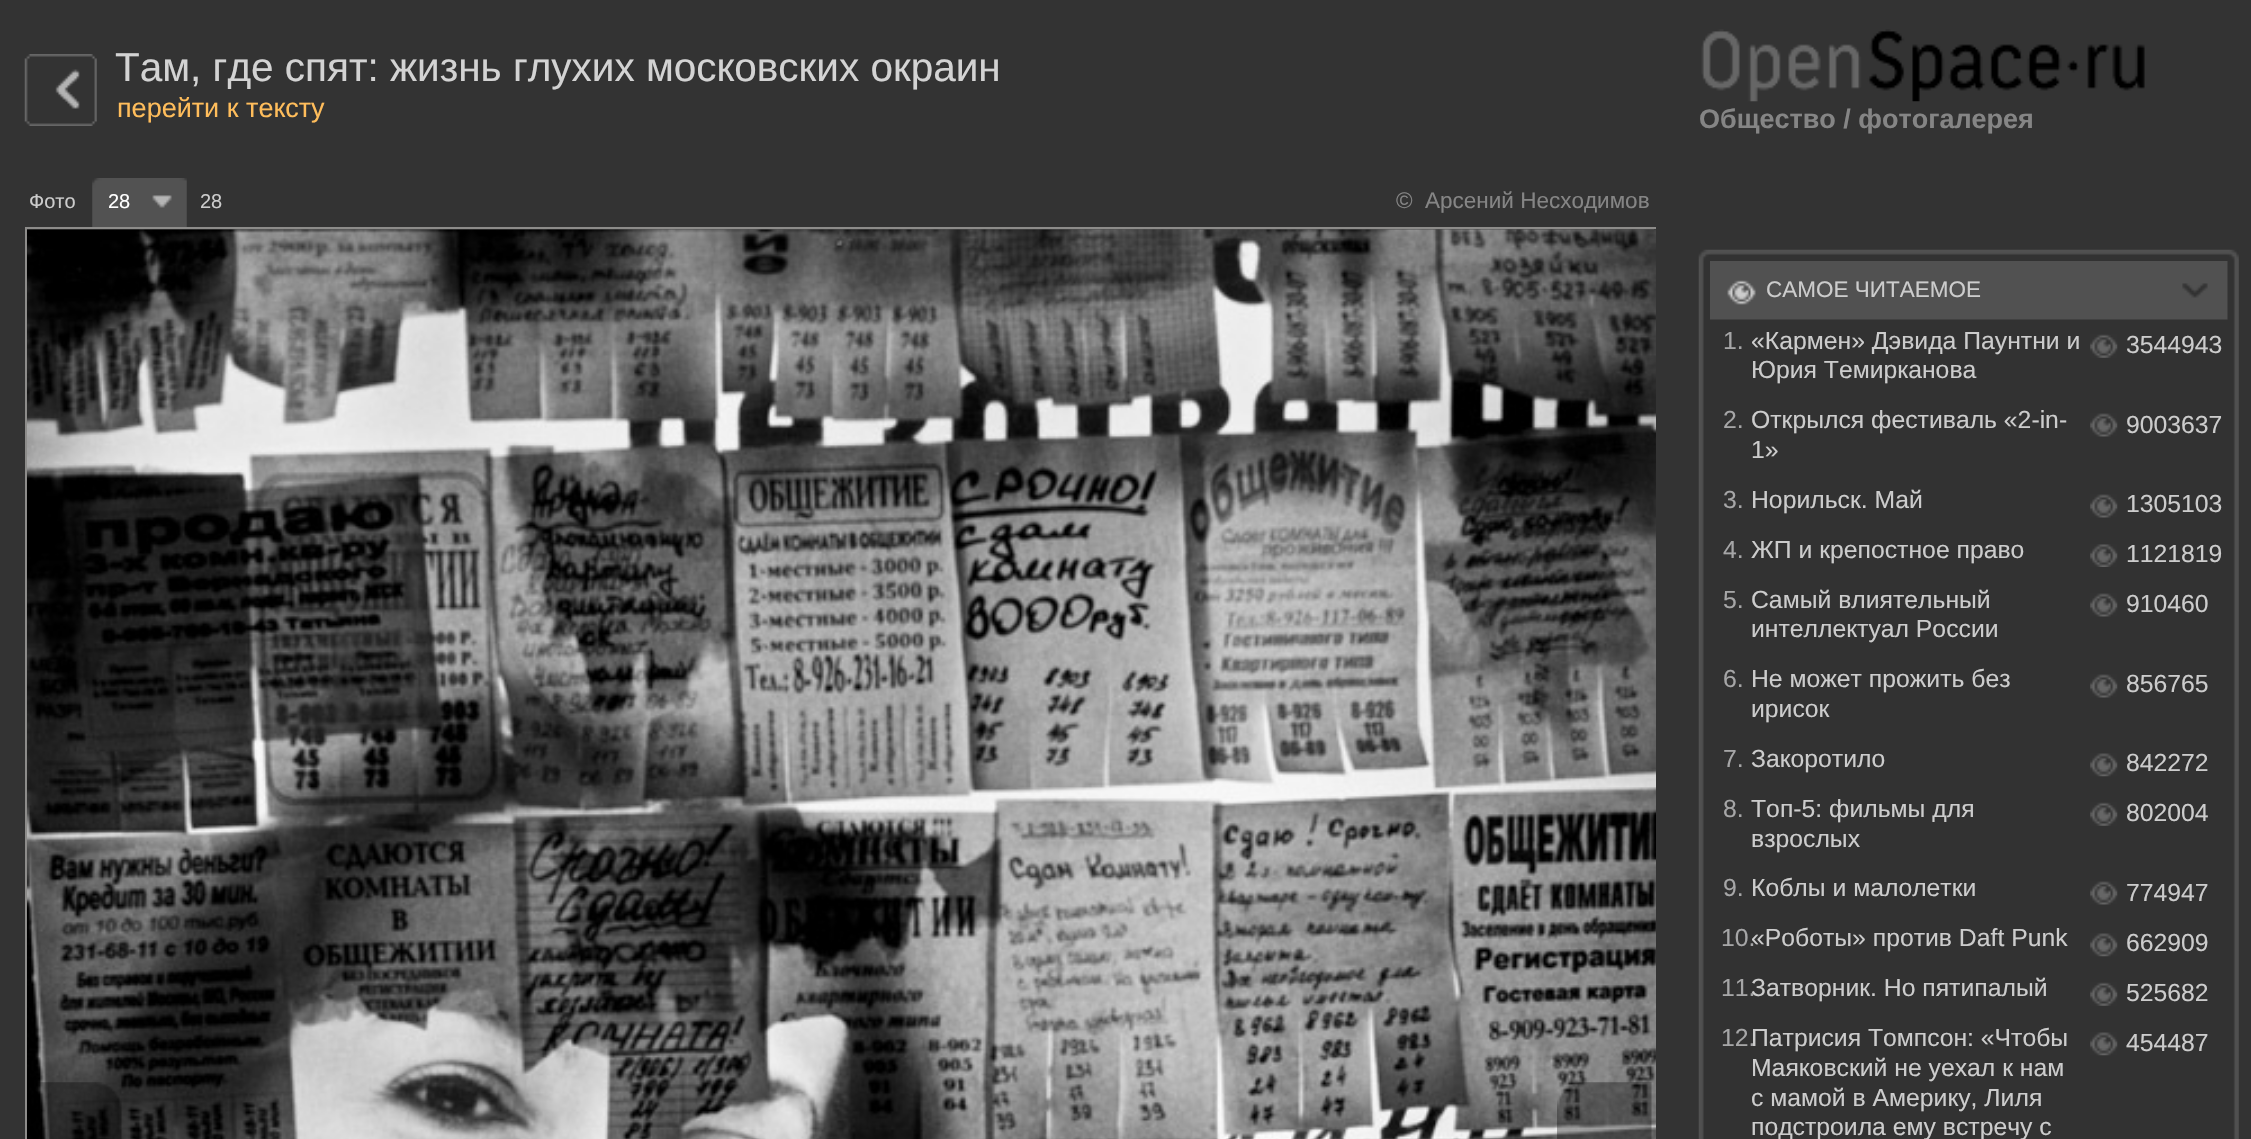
void draw(SkCanvas* canvas) {
	SkPaint paint;
	paint.setAntiAlias(true);
	canvas->clear(0xff333333);
	canvas->drawImageRect(SkImages::DeferredFromEncodedData(SkData::MakeFromFileName("img1.png")), SkRect::MakeXYWH(24, 54, 73, 72), SkSamplingOptions());
	SkFont f1(fontMgr->matchFamilyStyle("Liberation Sans", SkFontStyle::Normal()), 40.5);
	f1.setSubpixel(true);
	paint.setColor(0xffd3d3d3);
	canvas->drawString("Там, где спят: жизнь глухих московских окраин", 115, 81, f1, paint);
	SkFont f2(fontMgr->matchFamilyStyle("Liberation Sans", SkFontStyle::Normal()), 27);
	f2.setSubpixel(true);
	paint.setColor(0xffffbd5b);
	canvas->drawString("перейти к тексту", 117, 117, f2, paint);
	SkFont f3(fontMgr->matchFamilyStyle("Liberation Sans", SkFontStyle::Normal()), 20);
	f3.setSubpixel(true);
	paint.setColor(0xffcccccc);
	canvas->drawString("Фото", 29, 208, f3, paint);
	canvas->drawImageRect(SkImages::DeferredFromEncodedData(SkData::MakeFromFileName("img2.png")), SkRect::MakeXYWH(92, 178, 95, 49), SkSamplingOptions());
	paint.setColor(0xffffffff);
	canvas->drawString("28", 108, 208, f3, paint);
	paint.setColor(0xffcccccc);
	canvas->drawString("28", 200, 208, f3, paint);
	SkFont f4(fontMgr->matchFamilyStyle("Liberation Sans", SkFontStyle::Normal()), 22.5);
	f4.setSubpixel(true);
	paint.setColor(0xff858585);
	canvas->drawString("©  Арсений Несходимов", 1396, 208, f4, paint);
	paint.setColor(0xff525252);
	canvas->drawRect(SkRect::MakeXYWH(27, 229, 1627, 1), paint);
	canvas->drawImageRect(SkImages::DeferredFromEncodedData(SkData::MakeFromFileName("img7.png")), SkRect::MakeXYWH(1698, 249, 541, 12), SkSamplingOptions());
	canvas->drawImageRect(SkImages::DeferredFromEncodedData(SkData::MakeFromFileName("img8.png")), SkRect::MakeXYWH(1698, 261, 541, 878), SkSamplingOptions());
	canvas->drawImageRect(SkImages::DeferredFromEncodedData(SkData::MakeFromFileName("img9.png")), SkRect::MakeXYWH(1710, 261, 518, 59), SkSamplingOptions());
	paint.setColor(0xffcccccc);
	canvas->drawString("САМОЕ ЧИТАЕМОЕ", 1766, 297, f4, paint);
	SkFont f5(fontMgr->matchFamilyStyle("Liberation Sans", SkFontStyle::Normal()), 24.75);
	f5.setSubpixel(true);
	canvas->drawString("«Кармен» Дэвида Паунтни и", 1751, 349, f5, paint);
	canvas->drawString("Юрия Темирканова", 1751, 378, f5, paint);
	canvas->drawString("Открылся фестиваль «2-in-", 1751, 428, f5, paint);
	canvas->drawString("Норильск. Май", 1751, 508, f5, paint);
	canvas->drawString("ЖП и крепостное право", 1751, 558, f5, paint);
	canvas->drawString("Самый влиятельный", 1751, 608, f5, paint);
	canvas->drawString("интеллектуал России", 1751, 637, f5, paint);
	canvas->drawString("Не может прожить без", 1751, 687, f5, paint);
	canvas->drawString("ирисок", 1751, 717, f5, paint);
	canvas->drawString("Закоротило", 1751, 767, f5, paint);
	canvas->drawString("Топ-5: фильмы для", 1751, 817, f5, paint);
	canvas->drawString("взрослых", 1751, 847, f5, paint);
	canvas->drawString("Коблы и малолетки", 1751, 896, f5, paint);
	paint.setColor(0xffa6a6a7);
	canvas->drawString("10.", 1721, 946, f5, paint);
	paint.setColor(0xffcccccc);
	canvas->drawString("«Роботы» против Daft Punk", 1751, 946, f5, paint);
	paint.setColor(0xffa6a6a7);
	canvas->drawString("11.", 1721, 996, f5, paint);
	paint.setColor(0xffcccccc);
	canvas->drawString("Затворник. Но пятипалый", 1751, 996, f5, paint);
	paint.setColor(0xffa6a6a7);
	canvas->drawString("12.", 1721, 1046, f5, paint);
	paint.setColor(0xffcccccc);
	canvas->drawString("Патрисия Томпсон: «Чтобы", 1751, 1046, f5, paint);
	canvas->drawString("Маяковский не уехал к нам", 1751, 1076, f5, paint);
	canvas->drawString("с мамой в Америку, Лиля", 1751, 1106, f5, paint);
	canvas->drawString("подстроила ему встречу с", 1751, 1135, f5, paint);
	canvas->save();
	canvas->clipRect(SkRect::MakeXYWH(25, 128, 1631, 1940));
	paint.setStroke(true);
	paint.setStrokeWidth(2);
	paint.setColor(0xff8d8c8a);
	canvas->drawRect(SkRect::MakeXYWH(26, 228, 1802, 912), paint);
	canvas->restore();
	canvas->drawImageRect(SkImages::DeferredFromEncodedData(SkData::MakeFromFileName("img3.png")), SkRect::MakeXYWH(27, 229, 1629, 910), SkSamplingOptions());
	canvas->drawImageRect(SkImages::DeferredFromEncodedData(SkData::MakeFromFileName("img4.png")), SkRect::MakeXYWH(37, 1082, 85, 57), SkSamplingOptions());
	canvas->drawImageRect(SkImages::DeferredFromEncodedData(SkData::MakeFromFileName("img5.png")), SkRect::MakeXYWH(1557, 1082, 95, 57), SkSamplingOptions());
	canvas->drawImageRect(SkImages::DeferredFromEncodedData(SkData::MakeFromFileName("img6.png")), SkRect::MakeXYWH(1701, 29, 444, 73), SkSamplingOptions());
	SkFont f6(fontMgr->matchFamilyStyle("Liberation Sans", SkFontStyle::Bold()), 27);
	f6.setSubpixel(true);
	paint.setStroke(false);
	paint.setColor(0xff858585);
	canvas->drawString("Общество / фотогалерея", 1699, 128, f6, paint);
	paint.setColor(0xffa6a6a7);
	canvas->drawString("1.", 1723, 349, f5, paint);
	canvas->drawImageRect(SkImages::DeferredFromEncodedData(SkData::MakeFromFileName("img10.png")), SkRect::MakeXYWH(2090, 334, 28, 24), SkSamplingOptions());
	paint.setColor(0xffcccccc);
	canvas->drawString("3544943", 2126, 353, f5, paint);
	paint.setColor(0xffa6a6a7);
	canvas->drawString("2.", 1723, 428, f5, paint);
	paint.setColor(0xffcccccc);
	canvas->drawString("1»", 1751, 458, f5, paint);
	canvas->drawImageRect(SkImages::DeferredFromEncodedData(SkData::MakeFromFileName("img11.png")), SkRect::MakeXYWH(2090, 413, 28, 24), SkSamplingOptions());
	canvas->drawString("9003637", 2126, 433, f5, paint);
	paint.setColor(0xffa6a6a7);
	canvas->drawString("3.", 1723, 508, f5, paint);
	canvas->drawImageRect(SkImages::DeferredFromEncodedData(SkData::MakeFromFileName("img11.png")), SkRect::MakeXYWH(2090, 494, 28, 24), SkSamplingOptions());
	paint.setColor(0xffcccccc);
	canvas->drawString("1305103", 2126, 512, f5, paint);
	paint.setColor(0xffa6a6a7);
	canvas->drawString("4.", 1723, 558, f5, paint);
	canvas->drawImageRect(SkImages::DeferredFromEncodedData(SkData::MakeFromFileName("img12.png")), SkRect::MakeXYWH(2090, 544, 28, 23), SkSamplingOptions());
	paint.setColor(0xffcccccc);
	canvas->drawString("1121819", 2126, 562, f5, paint);
	paint.setColor(0xffa6a6a7);
	canvas->drawString("5.", 1723, 608, f5, paint);
	canvas->drawImageRect(SkImages::DeferredFromEncodedData(SkData::MakeFromFileName("img11.png")), SkRect::MakeXYWH(2090, 593, 28, 24), SkSamplingOptions());
	paint.setColor(0xffcccccc);
	canvas->drawString("910460", 2126, 612, f5, paint);
	paint.setColor(0xffa6a6a7);
	canvas->drawString("6.", 1723, 687, f5, paint);
	canvas->drawImageRect(SkImages::DeferredFromEncodedData(SkData::MakeFromFileName("img11.png")), SkRect::MakeXYWH(2090, 674, 28, 24), SkSamplingOptions());
	paint.setColor(0xffcccccc);
	canvas->drawString("856765", 2126, 692, f5, paint);
	paint.setColor(0xffa6a6a7);
	canvas->drawString("7.", 1723, 767, f5, paint);
	canvas->drawImageRect(SkImages::DeferredFromEncodedData(SkData::MakeFromFileName("img13.png")), SkRect::MakeXYWH(2090, 753, 28, 24), SkSamplingOptions());
	paint.setColor(0xffcccccc);
	canvas->drawString("842272", 2126, 771, f5, paint);
	paint.setColor(0xffa6a6a7);
	canvas->drawString("8.", 1723, 817, f5, paint);
	canvas->drawImageRect(SkImages::DeferredFromEncodedData(SkData::MakeFromFileName("img10.png")), SkRect::MakeXYWH(2090, 802, 28, 24), SkSamplingOptions());
	paint.setColor(0xffcccccc);
	canvas->drawString("802004", 2126, 821, f5, paint);
	paint.setColor(0xffa6a6a7);
	canvas->drawString("9.", 1723, 896, f5, paint);
	canvas->drawImageRect(SkImages::DeferredFromEncodedData(SkData::MakeFromFileName("img11.png")), SkRect::MakeXYWH(2090, 881, 28, 24), SkSamplingOptions());
	paint.setColor(0xffcccccc);
	canvas->drawString("774947", 2126, 901, f5, paint);
	canvas->drawImageRect(SkImages::DeferredFromEncodedData(SkData::MakeFromFileName("img13.png")), SkRect::MakeXYWH(2090, 933, 28, 24), SkSamplingOptions());
	canvas->drawString("662909", 2126, 951, f5, paint);
	canvas->drawImageRect(SkImages::DeferredFromEncodedData(SkData::MakeFromFileName("img10.png")), SkRect::MakeXYWH(2090, 982, 28, 24), SkSamplingOptions());
	canvas->drawString("525682", 2126, 1001, f5, paint);
	canvas->drawImageRect(SkImages::DeferredFromEncodedData(SkData::MakeFromFileName("img13.png")), SkRect::MakeXYWH(2090, 1032, 28, 24), SkSamplingOptions());
	canvas->drawString("454487", 2126, 1051, f5, paint);
}
